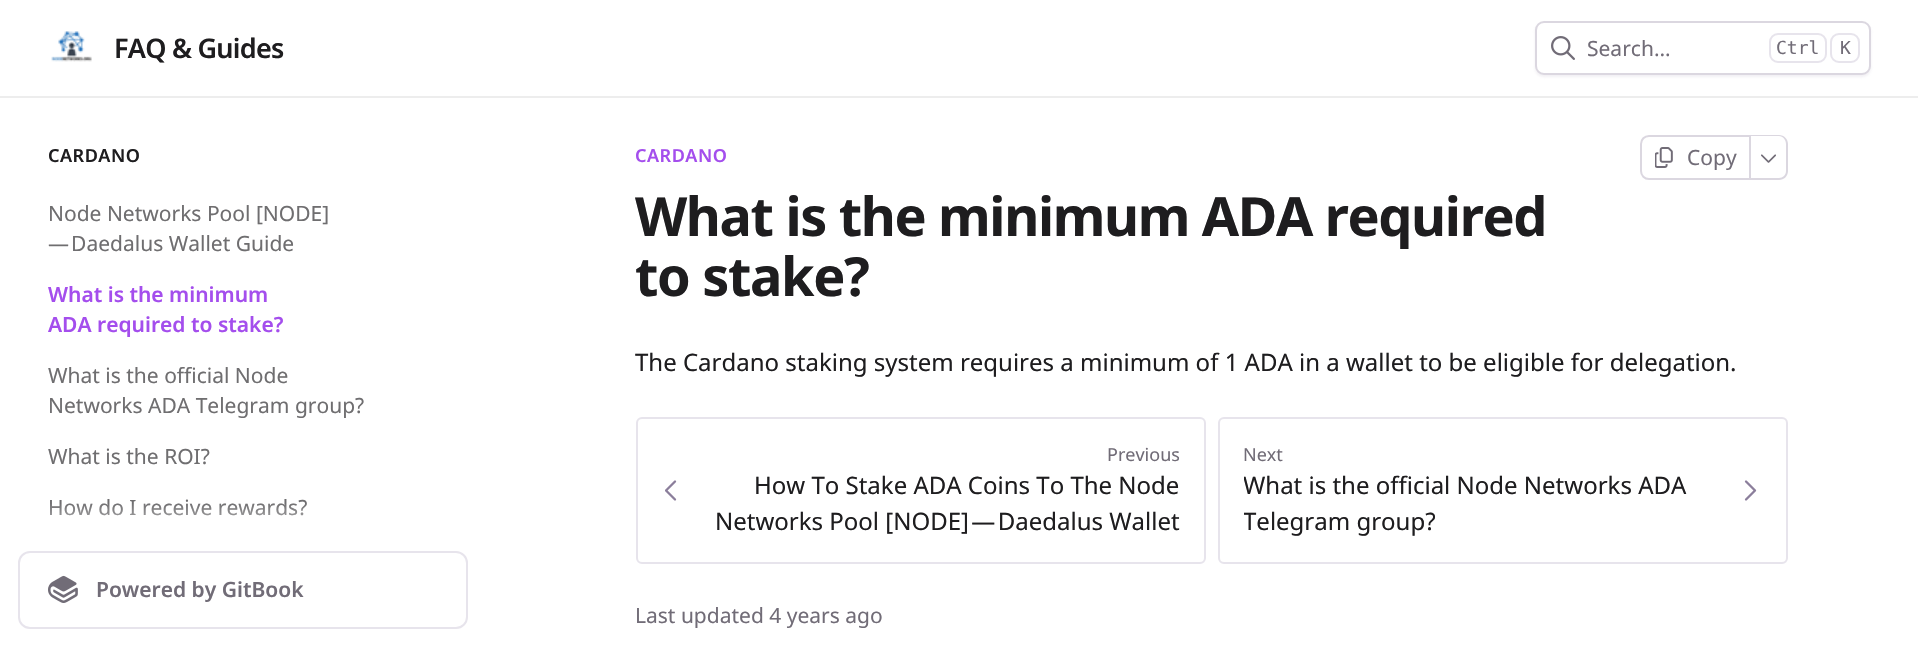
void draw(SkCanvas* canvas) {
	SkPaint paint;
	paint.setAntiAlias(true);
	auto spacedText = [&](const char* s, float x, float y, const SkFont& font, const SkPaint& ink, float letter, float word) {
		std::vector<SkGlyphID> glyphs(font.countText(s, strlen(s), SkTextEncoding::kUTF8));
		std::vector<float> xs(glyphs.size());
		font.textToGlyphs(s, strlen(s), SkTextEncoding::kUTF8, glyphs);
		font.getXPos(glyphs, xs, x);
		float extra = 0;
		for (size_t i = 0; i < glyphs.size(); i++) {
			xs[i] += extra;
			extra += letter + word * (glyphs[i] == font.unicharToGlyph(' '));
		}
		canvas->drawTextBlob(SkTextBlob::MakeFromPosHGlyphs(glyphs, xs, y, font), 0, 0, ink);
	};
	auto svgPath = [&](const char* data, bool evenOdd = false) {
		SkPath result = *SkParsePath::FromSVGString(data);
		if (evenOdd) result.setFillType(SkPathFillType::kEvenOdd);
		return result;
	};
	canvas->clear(0xffffffff);
	paint.setColor(0xffededed);
	canvas->drawPath(svgPath("M0 96V98H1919V2H1918V96Z"), paint);
	canvas->drawImageRect(SkImages::DeferredFromEncodedData(SkData::MakeFromFileName("img1.png")), SkRect::MakeXYWH(51, 31, 41, 31), SkSamplingOptions());
	SkFont f1(fontMgr->matchFamilyStyle("Noto Sans", SkFontStyle(600, SkFontStyle::kNormal_Width, SkFontStyle::kUpright_Slant)), 27);
	f1.setSubpixel(true);
	paint.setColor(0xff1e1d1f);
	spacedText("FAQ & Guides", 114, 58, f1, paint, -0.75, 0);
	paint.setColor(0x66dbd7e0);
	paint.setMaskFilter(SkMaskFilter::MakeBlur(kNormal_SkBlurStyle, 1.5));
	canvas->drawRoundRect(SkRect::MakeXYWH(1535, 23, 336, 54), 9, 9, paint);
	paint.setMaskFilter(nullptr);
	paint.setColor(0xffffffff);
	canvas->drawRoundRect(SkRect::MakeXYWH(1536, 22, 334, 52), 8, 8, paint);
	paint.setStroke(true);
	paint.setStrokeWidth(2);
	paint.setColor(0xffdbd7e0);
	canvas->drawRoundRect(SkRect::MakeXYWH(1536, 22, 334, 52), 8, 8, paint);
	canvas->drawImageRect(SkImages::DeferredFromEncodedData(SkData::MakeFromFileName("img2.png")), SkRect::MakeXYWH(1551, 36, 24, 24), SkSamplingOptions());
	SkFont f2(fontMgr->matchFamilyStyle("Noto Sans", SkFontStyle::Normal()), 21);
	f2.setSubpixel(true);
	paint.setStroke(false);
	paint.setColor(0xff716c77);
	canvas->drawString("Search…", 1587, 56, f2, paint);
	paint.setStroke(true);
	paint.setColor(0xffe7e4ec);
	canvas->drawRoundRect(SkRect::MakeXYWH(1770, 34, 56, 28), 8, 8, paint);
	SkFont f3(fontMgr->matchFamilyStyle("DejaVu Sans Mono", SkFontStyle::Normal()), 18);
	f3.setSubpixel(true);
	paint.setStroke(false);
	paint.setColor(0xff716c77);
	canvas->drawString("Ctrl", 1776, 54, f3, paint);
	paint.setStroke(true);
	paint.setColor(0xffe7e4ec);
	canvas->drawRoundRect(SkRect::MakeXYWH(1831, 34, 28, 28), 8, 8, paint);
	paint.setStroke(false);
	paint.setColor(0xff716c77);
	canvas->drawString("K", 1840, 54, f3, paint);
	SkFont f4(fontMgr->matchFamilyStyle("Noto Sans", SkFontStyle(600, SkFontStyle::kNormal_Width, SkFontStyle::kUpright_Slant)), 18);
	f4.setSubpixel(true);
	paint.setColor(0xff1e1d1f);
	spacedText("CARDANO", 48, 162, f4, paint, 0.5, 0);
	paint.setColor(0xff6f6e70);
	canvas->drawString("Node Networks Pool [NODE]", 48, 221, f2, paint);
	canvas->drawString("— Daedalus Wallet Guide", 48, 251, f2, paint);
	SkFont f5(fontMgr->matchFamilyStyle("Noto Sans", SkFontStyle(600, SkFontStyle::kNormal_Width, SkFontStyle::kUpright_Slant)), 21);
	f5.setSubpixel(true);
	paint.setColor(0xffa44eed);
	canvas->drawString("What is the minimum", 48, 302, f5, paint);
	canvas->drawString("ADA required to stake?", 48, 332, f5, paint);
	paint.setColor(0xff6f6e70);
	canvas->drawString("What is the official Node", 48, 383, f2, paint);
	canvas->drawString("Networks ADA Telegram group?", 48, 413, f2, paint);
	canvas->drawString("What is the ROI?", 48, 464, f2, paint);
	canvas->drawString("How do I receive rewards?", 48, 515, f2, paint);
	{
		const SkColor colors[] = {0x00ffffff, 0xffffffff};
		const float stops[] = {0, 1};
		const SkPoint ends[] = {{243, 503}, {243, 551}};
		paint.setShader(SkGradientShader::MakeLinear(ends, colors, stops, 2, SkTileMode::kClamp));
		paint.setAlpha(255);
	}
	canvas->drawRect(SkRect::MakeXYWH(50, 504, 257, 12), paint);
	paint.setStroke(true);
	paint.setShader(nullptr);
	paint.setColor(0xffe7e4ec);
	canvas->drawRoundRect(SkRect::MakeXYWH(19, 552, 448, 76), 11, 11, paint);
	canvas->drawImageRect(SkImages::DeferredFromEncodedData(SkData::MakeFromFileName("img3.png")), SkRect::MakeXYWH(48, 575, 30, 28), SkSamplingOptions());
	paint.setStroke(false);
	paint.setColor(0xff716c77);
	canvas->drawString("Powered by GitBook", 96, 597, f5, paint);
	paint.setColor(0xffa44eed);
	spacedText("CARDANO", 635, 162, f4, paint, 0.5, 0);
	paint.setStroke(true);
	paint.setColor(0xffdbd7e0);
	canvas->drawPath(svgPath("M1649 136H1750V179H1649C1644.5 179 1641 175.5 1641 171V144C1641 139.5 1644.5 136 1649 136Z"), paint);
	canvas->drawImageRect(SkImages::DeferredFromEncodedData(SkData::MakeFromFileName("img4.png")), SkRect::MakeXYWH(1655, 147, 18, 21), SkSamplingOptions());
	paint.setStroke(false);
	paint.setColor(0xff716c77);
	canvas->drawString("Copy", 1687, 165, f2, paint);
	paint.setColor(0xffdbd7e0);
	canvas->drawPath(svgPath("M1750 135H1779C1784 135 1788 139 1788 144V171C1788 176 1784 180 1779 180H1750ZM1750 136H1779C1783 136 1786 140 1786 144V171C1786 175 1783 178 1779 178H1750Z", true), paint);
	canvas->drawImageRect(SkImages::DeferredFromEncodedData(SkData::MakeFromFileName("img5.png")), SkRect::MakeXYWH(1761, 154, 15, 9), SkSamplingOptions());
	SkFont f6(fontMgr->matchFamilyStyle("Noto Sans", SkFontStyle::Bold()), 54);
	f6.setSubpixel(true);
	paint.setColor(0xff1e1d1f);
	spacedText("What is the minimum ADA required", 635, 236, f6, paint, -1.35, 0);
	spacedText("to stake?", 635, 296, f6, paint, -1.35, 0);
	SkFont f7(fontMgr->matchFamilyStyle("Noto Sans", SkFontStyle::Normal()), 24);
	f7.setSubpixel(true);
	canvas->drawString("The Cardano staking system requires a minimum of 1 ADA in a wallet to be eligible for delegation.", 635, 371, f7, paint);
	paint.setStroke(true);
	paint.setColor(0xffe7e4ec);
	canvas->drawRoundRect(SkRect::MakeXYWH(637, 418, 568, 145), 5, 5, paint);
	canvas->drawImageRect(SkImages::DeferredFromEncodedData(SkData::MakeFromFileName("img6.png")), SkRect::MakeXYWH(665, 480, 12, 21), SkSamplingOptions());
	SkFont f8(fontMgr->matchFamilyStyle("Noto Sans", SkFontStyle::Normal()), 18);
	f8.setSubpixel(true);
	paint.setStroke(false);
	paint.setColor(0xff716c77);
	canvas->drawString("Previous", 1107, 461, f8, paint);
	paint.setColor(0xff1e1d1f);
	canvas->drawString("How To Stake ADA Coins To The Node", 754, 494, f7, paint);
	canvas->drawString("Networks Pool [NODE] — Daedalus Wallet", 715, 530, f7, paint);
	paint.setStroke(true);
	paint.setColor(0xffe7e4ec);
	canvas->drawRoundRect(SkRect::MakeXYWH(1219, 418, 568, 145), 5, 5, paint);
	paint.setStroke(false);
	paint.setColor(0xff716c77);
	canvas->drawString("Next", 1243, 461, f8, paint);
	canvas->save();
	canvas->clipRect(SkRect::MakeXYWH(1244, 467, 471, 72));
	paint.setColor(0xff1e1d1f);
	canvas->drawString("What is the official Node Networks ADA", 1243, 494, f7, paint);
	canvas->drawString("Telegram group?", 1243, 530, f7, paint);
	canvas->restore();
	canvas->drawImageRect(SkImages::DeferredFromEncodedData(SkData::MakeFromFileName("img7.png")), SkRect::MakeXYWH(1744, 480, 13, 21), SkSamplingOptions());
	paint.setColor(0xff716c77);
	canvas->drawString("Last updated 4 years ago", 635, 623, f2, paint);
}
